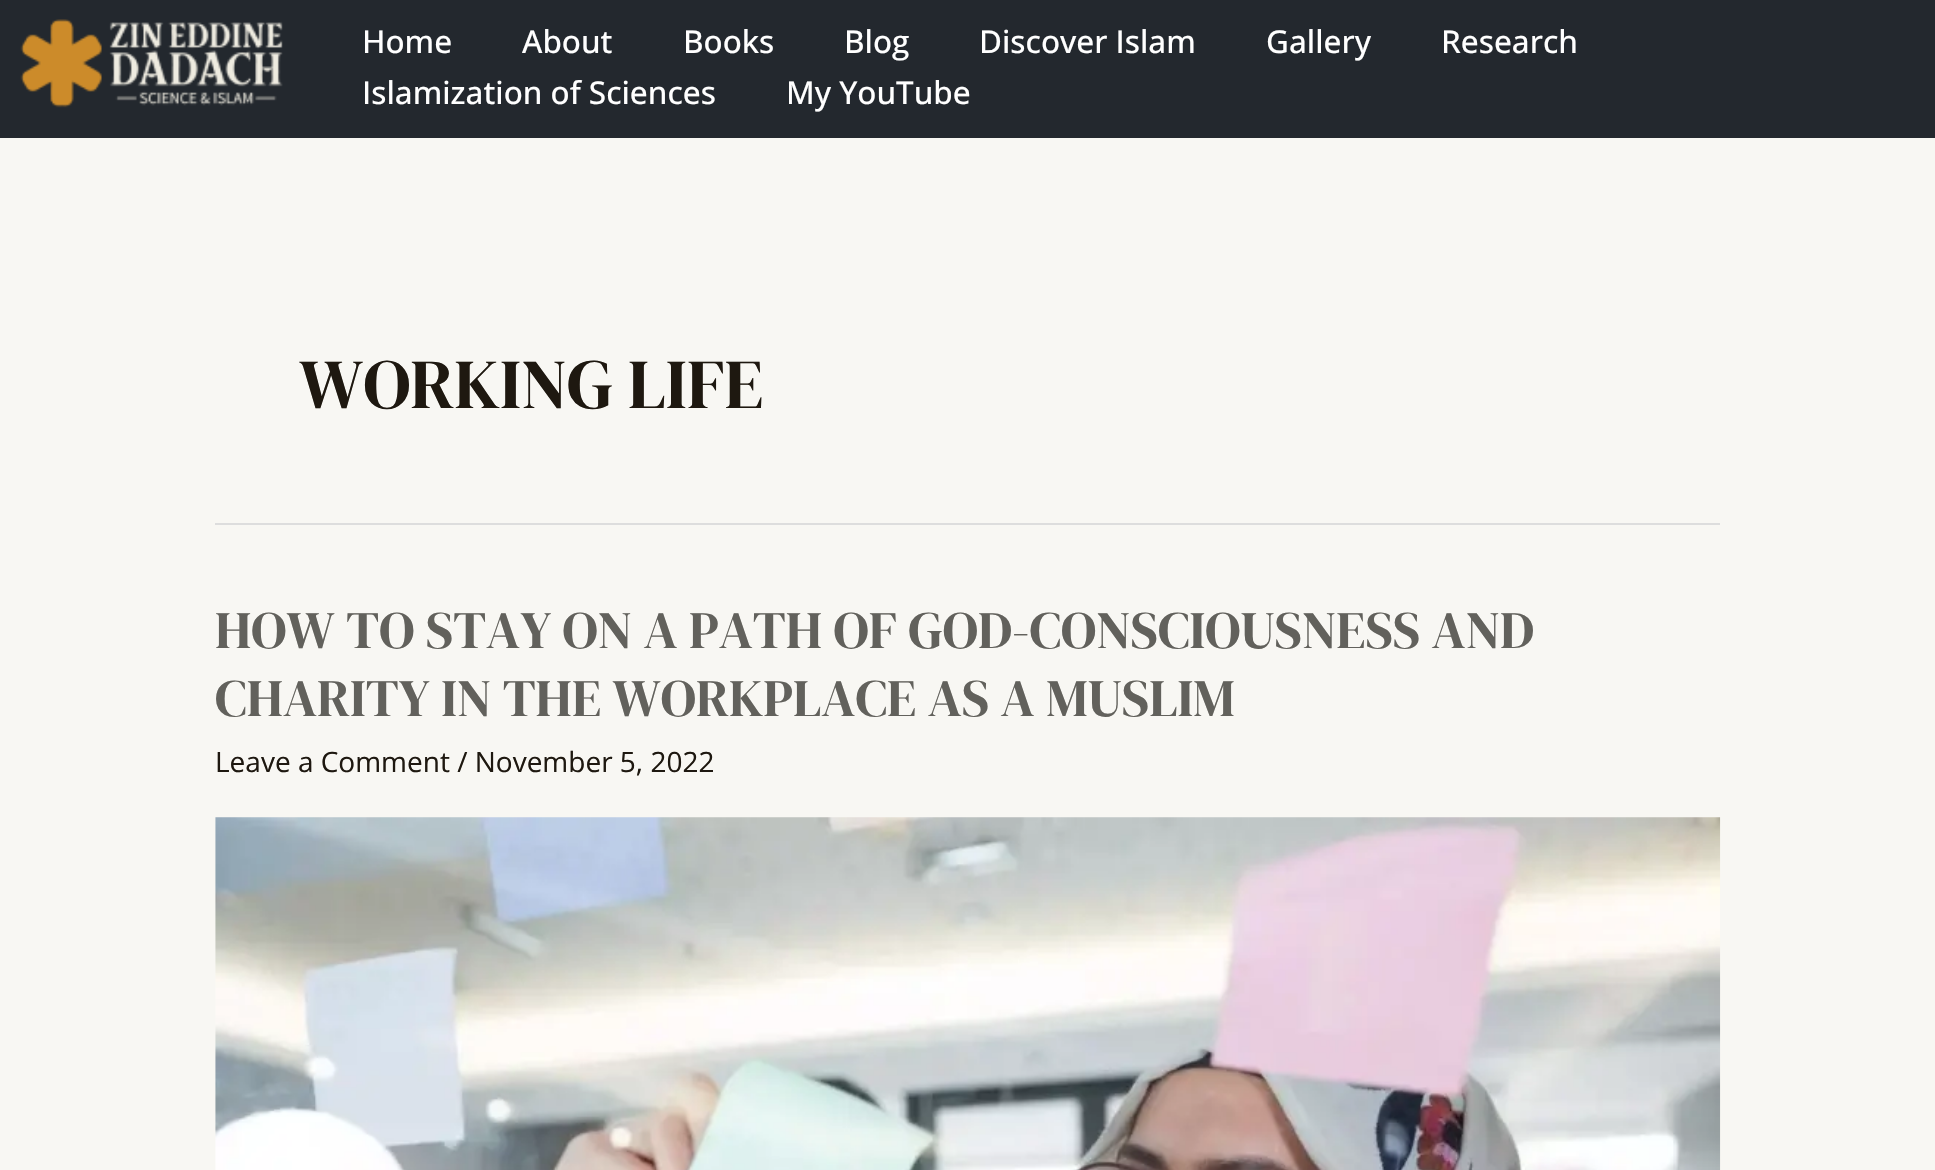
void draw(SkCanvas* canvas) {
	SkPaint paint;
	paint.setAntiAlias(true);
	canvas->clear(0xfff8f7f3);
	paint.setColor(0xff23282e);
	canvas->drawRect(SkRect::MakeXYWH(0, 0, 1935, 138), paint);
	canvas->drawImageRect(SkImages::DeferredFromEncodedData(SkData::MakeFromFileName("img1.png")), SkRect::MakeXYWH(20, 19, 263, 89), SkSamplingOptions());
	SkFont f1(fontMgr->matchFamilyStyle("Open Sans", SkFontStyle(500, SkFontStyle::kNormal_Width, SkFontStyle::kUpright_Slant)), 31.5);
	f1.setSubpixel(true);
	paint.setColor(0xffffffff);
	canvas->drawString("Home", 362, 53, f1, paint);
	canvas->drawString("About", 522, 53, f1, paint);
	canvas->drawString("Books", 683, 53, f1, paint);
	canvas->drawString("Blog", 844, 53, f1, paint);
	canvas->drawString("Discover Islam", 979, 53, f1, paint);
	canvas->drawString("Gallery", 1266, 53, f1, paint);
	canvas->drawString("Research", 1441, 53, f1, paint);
	canvas->drawString("Islamization of Sciences", 362, 104, f1, paint);
	canvas->drawString("My YouTube", 786, 104, f1, paint);
	paint.setColor(0xffdddddd);
	canvas->drawRect(SkRect::MakeXYWH(215, 523, 1505, 2), paint);
	SkFont f2(fontMgr->matchFamilyStyle("DM Serif Display", SkFontStyle::Normal()), 70);
	f2.setSubpixel(true);
	paint.setColor(0xff1e1810);
	canvas->drawString("WORKING LIFE", 299, 408, f2, paint);
	SkFont f3(fontMgr->matchFamilyStyle("DM Serif Display", SkFontStyle::Normal()), 52.5);
	f3.setSubpixel(true);
	paint.setColor(0xff62615c);
	canvas->drawString("HOW TO STAY ON A PATH OF GOD-CONSCIOUSNESS AND", 215, 648, f3, paint);
	canvas->drawString("CHARITY IN THE WORKPLACE AS A MUSLIM", 215, 716, f3, paint);
	SkFont f4(fontMgr->matchFamilyStyle("Open Sans", SkFontStyle::Normal()), 28);
	f4.setSubpixel(true);
	paint.setColor(0xff1e1810);
	canvas->drawString("Leave a Comment / November 5, 2022", 215, 772, f4, paint);
	canvas->drawImageRect(SkImages::DeferredFromEncodedData(SkData::MakeFromFileName("img2.png")), SkRect::MakeXYWH(215, 817, 1506, 353), SkSamplingOptions());
}
